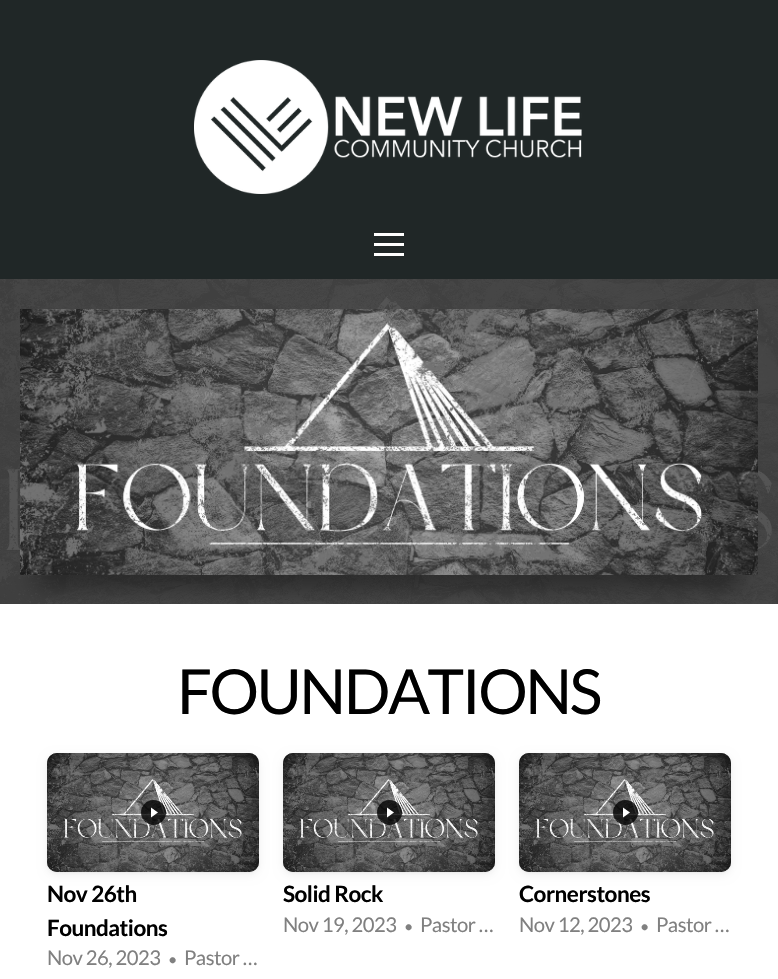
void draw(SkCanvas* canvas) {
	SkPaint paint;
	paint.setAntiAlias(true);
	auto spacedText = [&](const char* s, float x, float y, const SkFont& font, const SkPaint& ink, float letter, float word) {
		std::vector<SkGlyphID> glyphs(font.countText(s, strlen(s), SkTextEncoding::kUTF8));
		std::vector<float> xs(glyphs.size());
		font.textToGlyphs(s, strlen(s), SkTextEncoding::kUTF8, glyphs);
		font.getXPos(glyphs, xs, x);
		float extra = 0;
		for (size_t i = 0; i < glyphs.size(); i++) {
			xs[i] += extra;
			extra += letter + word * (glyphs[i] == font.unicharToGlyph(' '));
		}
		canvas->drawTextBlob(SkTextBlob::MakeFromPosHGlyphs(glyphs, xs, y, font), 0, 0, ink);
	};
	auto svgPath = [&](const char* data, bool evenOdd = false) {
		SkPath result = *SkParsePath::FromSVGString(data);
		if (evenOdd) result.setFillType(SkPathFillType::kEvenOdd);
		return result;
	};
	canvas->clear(0xff202727);
	canvas->drawImageRect(SkImages::DeferredFromEncodedData(SkData::MakeFromFileName("img1.png")), SkRect::MakeXYWH(194, 60, 388, 134), SkSamplingOptions());
	paint.setColor(0xffffffff);
	canvas->drawRect(SkRect::MakeXYWH(374, 233, 30, 3), paint);
	canvas->drawRect(SkRect::MakeXYWH(374, 243, 30, 3), paint);
	canvas->drawRect(SkRect::MakeXYWH(374, 253, 30, 3), paint);
	canvas->drawImageRect(SkImages::DeferredFromEncodedData(SkData::MakeFromFileName("img2.png")), SkRect::MakeXYWH(0, 279, 778, 325), SkSamplingOptions());
	paint.setColor(0x80000000);
	paint.setMaskFilter(SkMaskFilter::MakeBlur(kNormal_SkBlurStyle, 12.5));
	canvas->drawRoundRect(SkRect::MakeXYWH(34, 564, 710, 22), 11, 11, paint);
	paint.setMaskFilter(nullptr);
	canvas->drawImageRect(SkImages::DeferredFromEncodedData(SkData::MakeFromFileName("img3.png")), SkRect::MakeXYWH(20, 309, 738, 266), SkSamplingOptions());
	paint.setColor(0xffffffff);
	canvas->drawRect(SkRect::MakeXYWH(0, 604, 778, 375), paint);
	SkFont f1(fontMgr->matchFamilyStyle("Lato", SkFontStyle::Normal()), 62);
	f1.setSubpixel(true);
	paint.setColor(0xff000000);
	spacedText("FOUNDATIONS", 177, 714, f1, paint, -2.5, 0);
	paint.setColor(0x0a000000);
	paint.setMaskFilter(SkMaskFilter::MakeBlur(kNormal_SkBlurStyle, 1));
	canvas->drawRoundRect(SkRect::MakeXYWH(47, 754, 212, 119), 10, 10, paint);
	paint.setMaskFilter(nullptr);
	paint.setColor(0x0f000000);
	paint.setMaskFilter(SkMaskFilter::MakeBlur(kNormal_SkBlurStyle, 5));
	canvas->drawRoundRect(SkRect::MakeXYWH(47, 756, 212, 119), 10, 10, paint);
	paint.setMaskFilter(nullptr);
	paint.setColor(0xff686868);
	canvas->drawRoundRect(SkRect::MakeXYWH(47, 753, 212, 119), 10, 10, paint);
	canvas->drawImageRect(SkImages::DeferredFromEncodedData(SkData::MakeFromFileName("img4.png")), SkRect::MakeXYWH(47, 753, 212, 119), SkSamplingOptions());
	paint.setColor(0xcc000000);
	canvas->drawCircle(153.5, 812.5, 12.5, paint);
	paint.setColor(0xffffffff);
	canvas->drawPath(svgPath("M151 817.5V807.5L158 812.5Z"), paint);
	SkFont f2(fontMgr->matchFamilyStyle("Lato", SkFontStyle::Bold()), 22.5);
	f2.setSubpixel(true);
	paint.setColor(0xff000000);
	spacedText("Nov 26th", 47, 902, f2, paint, -0.5, 0);
	spacedText("Foundations", 47, 936, f2, paint, -0.5, 0);
	SkFont f3(fontMgr->matchFamilyStyle("Lato", SkFontStyle::Normal()), 20.25);
	f3.setSubpixel(true);
	paint.setColor(0xff808080);
	spacedText("Nov 26, 2023", 47, 965, f3, paint, -0.5, 0);
	SkFont f4(fontMgr->matchFamilyStyle("Lato", SkFontStyle::Normal()), 16);
	f4.setSubpixel(true);
	spacedText("•", 168, 965, f4, paint, -0.5, 0);
	spacedText("Pastor …", 184, 965, f3, paint, -0.5, 0);
	paint.setColor(0x0a000000);
	paint.setMaskFilter(SkMaskFilter::MakeBlur(kNormal_SkBlurStyle, 1));
	canvas->drawRoundRect(SkRect::MakeXYWH(283, 754, 212, 119), 10, 10, paint);
	paint.setMaskFilter(nullptr);
	paint.setColor(0x0f000000);
	paint.setMaskFilter(SkMaskFilter::MakeBlur(kNormal_SkBlurStyle, 5));
	canvas->drawRoundRect(SkRect::MakeXYWH(283, 756, 212, 119), 10, 10, paint);
	paint.setMaskFilter(nullptr);
	paint.setColor(0xff686868);
	canvas->drawRoundRect(SkRect::MakeXYWH(283, 753, 212, 119), 10, 10, paint);
	canvas->drawImageRect(SkImages::DeferredFromEncodedData(SkData::MakeFromFileName("img5.png")), SkRect::MakeXYWH(283, 753, 212, 119), SkSamplingOptions());
	paint.setColor(0xcc000000);
	canvas->drawCircle(389.5, 812.5, 12.5, paint);
	paint.setColor(0xffffffff);
	canvas->drawPath(svgPath("M387 817.5V807.5L394 812.5Z"), paint);
	paint.setColor(0xff000000);
	spacedText("Solid Rock", 283, 902, f2, paint, -0.5, 0);
	paint.setColor(0xff808080);
	spacedText("Nov 19, 2023", 283, 932, f3, paint, -0.5, 0);
	spacedText("•", 404, 932, f4, paint, -0.5, 0);
	spacedText("Pastor …", 420, 932, f3, paint, -0.5, 0);
	paint.setColor(0x0a000000);
	paint.setMaskFilter(SkMaskFilter::MakeBlur(kNormal_SkBlurStyle, 1));
	canvas->drawRoundRect(SkRect::MakeXYWH(519, 754, 212, 119), 10, 10, paint);
	paint.setMaskFilter(nullptr);
	paint.setColor(0x0f000000);
	paint.setMaskFilter(SkMaskFilter::MakeBlur(kNormal_SkBlurStyle, 5));
	canvas->drawRoundRect(SkRect::MakeXYWH(519, 756, 212, 119), 10, 10, paint);
	paint.setMaskFilter(nullptr);
	paint.setColor(0xff686868);
	canvas->drawRoundRect(SkRect::MakeXYWH(519, 753, 212, 119), 10, 10, paint);
	canvas->drawImageRect(SkImages::DeferredFromEncodedData(SkData::MakeFromFileName("img6.png")), SkRect::MakeXYWH(519, 753, 212, 119), SkSamplingOptions());
	paint.setColor(0xcc000000);
	canvas->drawCircle(625.5, 812.5, 12.5, paint);
	paint.setColor(0xffffffff);
	canvas->drawPath(svgPath("M623 817.5V807.5L630 812.5Z"), paint);
	paint.setColor(0xff000000);
	spacedText("Cornerstones", 519, 902, f2, paint, -0.5, 0);
	paint.setColor(0xff808080);
	spacedText("Nov 12, 2023", 519, 932, f3, paint, -0.5, 0);
	spacedText("•", 640, 932, f4, paint, -0.5, 0);
	spacedText("Pastor …", 656, 932, f3, paint, -0.5, 0);
}
